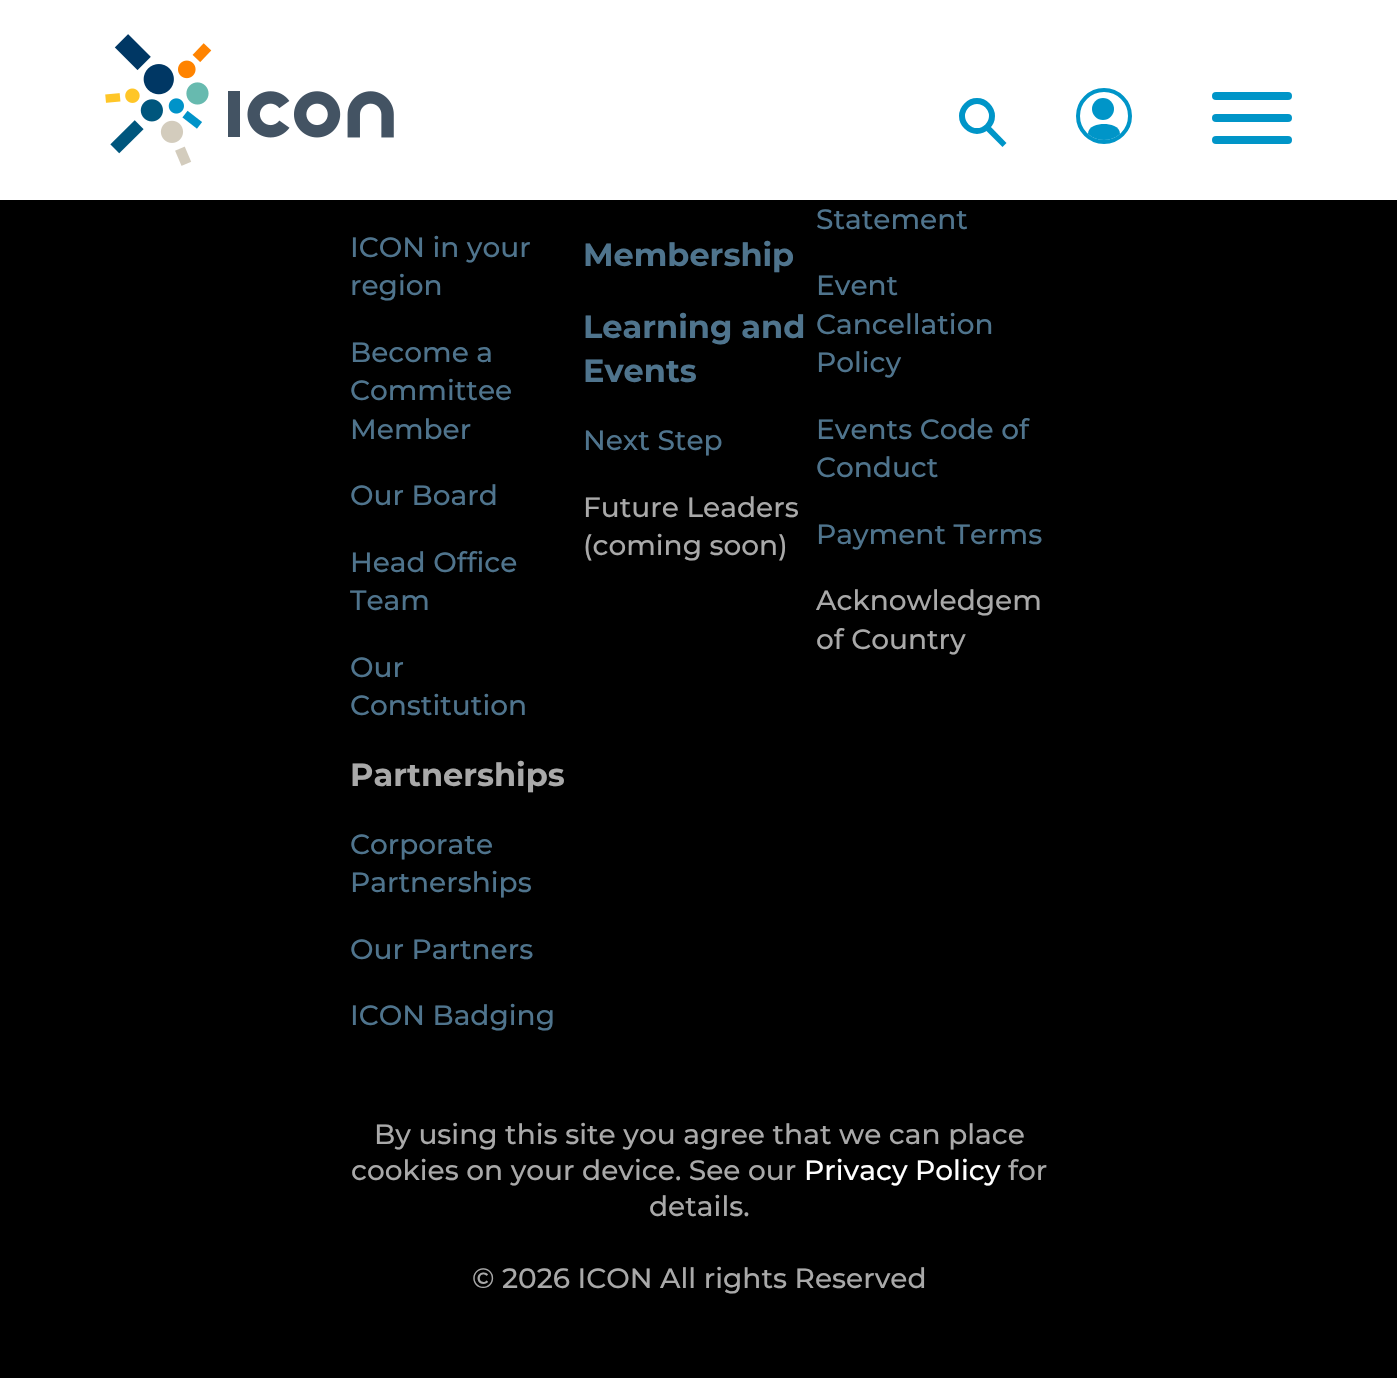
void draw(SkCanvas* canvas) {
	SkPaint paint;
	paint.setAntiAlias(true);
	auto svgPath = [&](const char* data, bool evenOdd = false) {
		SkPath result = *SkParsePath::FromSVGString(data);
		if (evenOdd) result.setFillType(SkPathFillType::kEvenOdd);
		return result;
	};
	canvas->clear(0xff000000);
	paint.setColor(0x33000000);
	paint.setMaskFilter(SkMaskFilter::MakeBlur(kNormal_SkBlurStyle, 20));
	canvas->drawRect(SkRect::MakeXYWH(-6, -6, 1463, 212), paint);
	paint.setMaskFilter(nullptr);
	paint.setColor(0xffffffff);
	canvas->drawRect(SkRect::MakeXYWH(0, 0, 1397, 200), paint);
	canvas->drawImageRect(SkImages::DeferredFromEncodedData(SkData::MakeFromFileName("img1.png")), SkRect::MakeXYWH(105, 34, 289, 132), SkSamplingOptions());
	paint.setStroke(true);
	paint.setStrokeWidth(6);
	paint.setColor(0xff0095c8);
	canvas->drawPath(svgPath("M966.5 105.5C972.5 99.5 981.5 99.5 987.5 105.5C993.5 111.5 993.5 120.5 987.5 126.5C981.5 132.5 972.5 132.5 966.5 126.5C960.5 120.5 960.5 111.5 966.5 105.5Z"), paint);
	paint.setStroke(false);
	canvas->drawPath(svgPath("M984 128.5L988.5 124.5L1006.5 143L1002.5 147Z"), paint);
	paint.setStroke(true);
	paint.setStrokeWidth(4);
	canvas->drawCircle(1104, 116, 26, paint);
	paint.setStroke(false);
	canvas->drawCircle(1103, 109, 11, paint);
	canvas->drawPath(svgPath("M1104 124C1110 124 1120 126 1120 134C1111 142 1097 142 1088 134C1088 126 1098 124 1104 124Z"), paint);
	canvas->drawRoundRect(SkRect::MakeXYWH(1212, 92, 80, 8), 4, 4, paint);
	canvas->drawRoundRect(SkRect::MakeXYWH(1212, 114, 80, 8), 4, 4, paint);
	canvas->drawRoundRect(SkRect::MakeXYWH(1212, 136, 80, 8), 4, 4, paint);
	SkFont f1(fontMgr->matchFamilyStyle("Montserrat", SkFontStyle(500, SkFontStyle::kNormal_Width, SkFontStyle::kUpright_Slant)), 28);
	f1.setSubpixel(true);
	paint.setColor(0xff4f748d);
	canvas->drawString("ICON in your", 350, 257, f1, paint);
	canvas->drawString("region", 350, 295, f1, paint);
	canvas->drawString("Become a", 350, 362, f1, paint);
	canvas->drawString("Committee", 350, 400, f1, paint);
	canvas->drawString("Member", 350, 439, f1, paint);
	canvas->drawString("Our Board", 350, 505, f1, paint);
	canvas->drawString("Head Office", 350, 572, f1, paint);
	canvas->save();
	canvas->clipRect(SkRect::MakeXYWH(350, 90, 232, 946));
	canvas->drawString("Team", 350, 610, f1, paint);
	canvas->restore();
	canvas->drawString("Our", 350, 677, f1, paint);
	canvas->drawString("Constitution", 350, 715, f1, paint);
	SkFont f2(fontMgr->matchFamilyStyle("Montserrat", SkFontStyle::Bold()), 32);
	f2.setSubpixel(true);
	paint.setColor(0xffa9a9a9);
	canvas->drawString("Partnerships", 350, 786, f2, paint);
	paint.setColor(0xff4f748d);
	canvas->drawString("Corporate", 350, 854, f1, paint);
	canvas->drawString("Partnerships", 350, 892, f1, paint);
	canvas->drawString("Our Partners", 350, 959, f1, paint);
	canvas->drawString("ICON Badging", 350, 1025, f1, paint);
	canvas->drawString("Membership", 583, 266, f2, paint);
	canvas->drawString("Learning and", 583, 338, f2, paint);
	canvas->drawString("Events", 583, 382, f2, paint);
	canvas->drawString("Next Step", 583, 450, f1, paint);
	paint.setColor(0xffa9a9a9);
	canvas->drawString("Future Leaders", 583, 517, f1, paint);
	canvas->drawString("(coming soon)", 583, 555, f1, paint);
	paint.setColor(0xff4f748d);
	canvas->drawString("Statement", 816, 229, f1, paint);
	canvas->drawString("Event", 816, 295, f1, paint);
	canvas->drawString("Cancellation", 816, 334, f1, paint);
	canvas->drawString("Policy", 816, 372, f1, paint);
	canvas->drawString("Events Code of", 816, 439, f1, paint);
	canvas->drawString("Conduct", 816, 477, f1, paint);
	canvas->drawString("Payment Terms", 816, 544, f1, paint);
	paint.setColor(0xffa9a9a9);
	canvas->drawString("Acknowledgem", 816, 610, f1, paint);
	canvas->drawString("of Country", 816, 649, f1, paint);
	canvas->drawString("By using this site you agree that we can place", 374, 1144, f1, paint);
	canvas->drawString("cookies on your device. See our", 351, 1180, f1, paint);
	paint.setColor(0xffffffff);
	canvas->drawString("Privacy Policy", 804, 1180, f1, paint);
	paint.setColor(0xffa9a9a9);
	canvas->drawString("for", 1008, 1180, f1, paint);
	canvas->drawString("details.", 649, 1216, f1, paint);
	canvas->drawString("© 2026 ICON All rights Reserved", 472, 1288, f1, paint);
}
